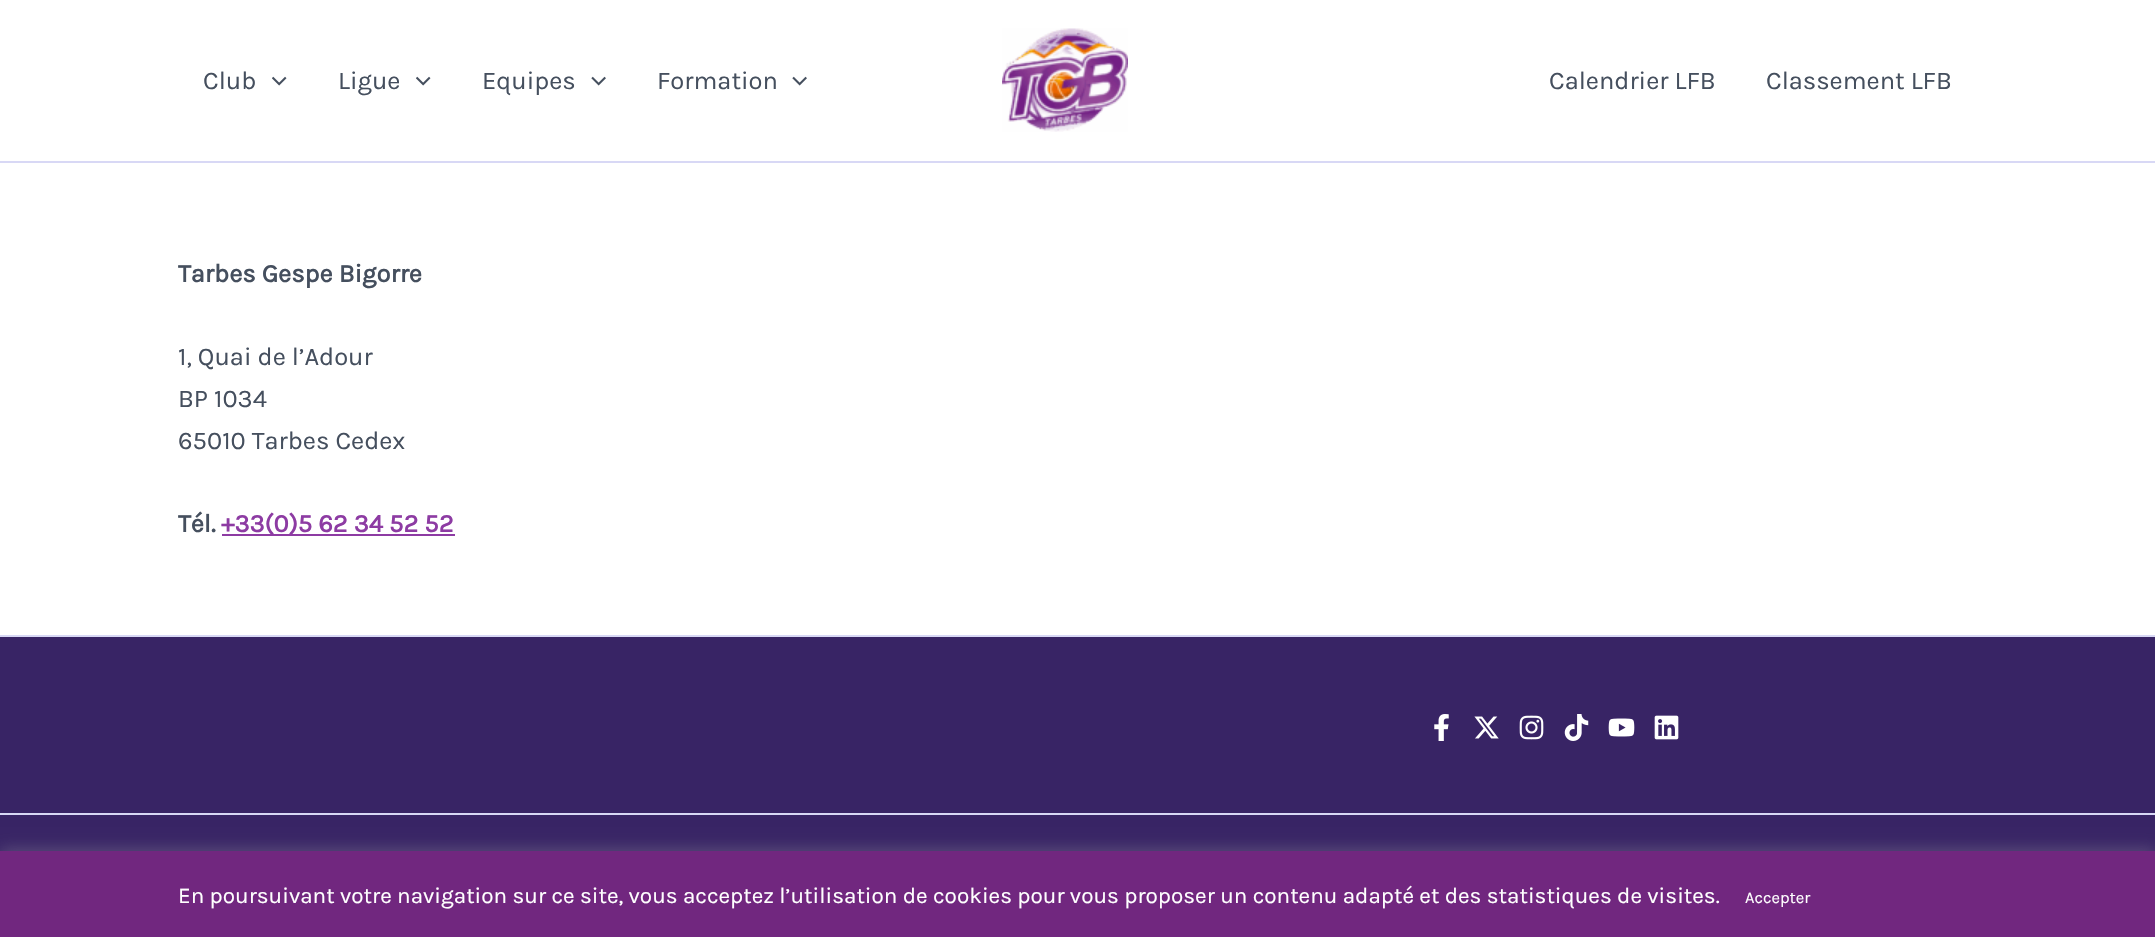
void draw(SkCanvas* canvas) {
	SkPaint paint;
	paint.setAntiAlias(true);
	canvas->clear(0xffffffff);
	paint.setColor(0xffd8d8f5);
	canvas->drawRect(SkRect::MakeXYWH(0, 161, 2155, 2), paint);
	SkFont f1(fontMgr->matchFamilyStyle("Karla", SkFontStyle::Normal()), 25.5);
	f1.setSubpixel(true);
	paint.setColor(0xff454f5e);
	canvas->drawString("Club", 203, 89, f1, paint);
	canvas->drawImageRect(SkImages::DeferredFromEncodedData(SkData::MakeFromFileName("img1.png")), SkRect::MakeXYWH(272, 76, 15, 10), SkSamplingOptions());
	canvas->drawString("Ligue", 338, 89, f1, paint);
	canvas->drawImageRect(SkImages::DeferredFromEncodedData(SkData::MakeFromFileName("img1.png")), SkRect::MakeXYWH(416, 76, 15, 10), SkSamplingOptions());
	canvas->drawString("Equipes", 482, 89, f1, paint);
	canvas->drawImageRect(SkImages::DeferredFromEncodedData(SkData::MakeFromFileName("img2.png")), SkRect::MakeXYWH(591, 76, 15, 10), SkSamplingOptions());
	canvas->drawString("Formation", 657, 89, f1, paint);
	canvas->drawImageRect(SkImages::DeferredFromEncodedData(SkData::MakeFromFileName("img2.png")), SkRect::MakeXYWH(792, 76, 15, 10), SkSamplingOptions());
	canvas->drawImageRect(SkImages::DeferredFromEncodedData(SkData::MakeFromFileName("img3.png")), SkRect::MakeXYWH(1002, 28, 126, 104), SkSamplingOptions());
	canvas->drawString("Calendrier LFB", 1549, 89, f1, paint);
	canvas->drawString("Classement LFB", 1766, 89, f1, paint);
	SkFont f2(fontMgr->matchFamilyStyle("Karla", SkFontStyle::Bold()), 25.5);
	f2.setSubpixel(true);
	canvas->drawString("Tarbes Gespe Bigorre", 178, 282, f2, paint);
	canvas->drawString("1, Quai de l’Adour", 178, 365, f1, paint);
	canvas->drawString("BP 1034", 178, 407, f1, paint);
	canvas->drawString("65010 Tarbes Cedex", 178, 449, f1, paint);
	canvas->drawString("Tél.", 178, 532, f2, paint);
	paint.setColor(0xff8d3ba3);
	canvas->drawRect(SkRect::MakeXYWH(222, 534, 233, 2), paint);
	canvas->drawString("+33(0)5 62 34 52 52", 221, 532, f2, paint);
	paint.setColor(0xff382465);
	canvas->drawRect(SkRect::MakeXYWH(0, 637, 2155, 214), paint);
	paint.setColor(0xffd8d8f5);
	canvas->drawRect(SkRect::MakeXYWH(0, 635, 2155, 2), paint);
	canvas->drawImageRect(SkImages::DeferredFromEncodedData(SkData::MakeFromFileName("img4.png")), SkRect::MakeXYWH(1434, 714, 15, 27), SkSamplingOptions());
	canvas->drawImageRect(SkImages::DeferredFromEncodedData(SkData::MakeFromFileName("img5.png")), SkRect::MakeXYWH(1474, 716, 25, 23), SkSamplingOptions());
	canvas->drawImageRect(SkImages::DeferredFromEncodedData(SkData::MakeFromFileName("img6.png")), SkRect::MakeXYWH(1519, 715, 25, 25), SkSamplingOptions());
	canvas->drawImageRect(SkImages::DeferredFromEncodedData(SkData::MakeFromFileName("img7.png")), SkRect::MakeXYWH(1564, 714, 25, 27), SkSamplingOptions());
	canvas->drawImageRect(SkImages::DeferredFromEncodedData(SkData::MakeFromFileName("img8.png")), SkRect::MakeXYWH(1608, 718, 27, 19), SkSamplingOptions());
	canvas->drawImageRect(SkImages::DeferredFromEncodedData(SkData::MakeFromFileName("img9.png")), SkRect::MakeXYWH(1654, 715, 25, 25), SkSamplingOptions());
	canvas->drawRect(SkRect::MakeXYWH(0, 813, 2155, 2), paint);
	paint.setColor(0x4dacabab);
	paint.setMaskFilter(SkMaskFilter::MakeBlur(kNormal_SkBlurStyle, 7.5));
	canvas->drawRect(SkRect::MakeXYWH(0, 849, 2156, 87), paint);
	paint.setMaskFilter(nullptr);
	paint.setColor(0xff71277f);
	canvas->drawRect(SkRect::MakeXYWH(0, 851, 2155, 86), paint);
	SkFont f3(fontMgr->matchFamilyStyle("Karla", SkFontStyle::Normal()), 22.5);
	f3.setSubpixel(true);
	paint.setColor(0xffffffff);
	canvas->drawString("En poursuivant votre navigation sur ce site, vous acceptez l’utilisation de cookies pour vous proposer un contenu adapté et des statistiques de visites.", 178, 903, f3, paint);
	SkFont f4(fontMgr->matchFamilyStyle("Karla", SkFontStyle::Normal()), 16.5);
	f4.setSubpixel(true);
	canvas->drawString("Accepter", 1745, 903, f4, paint);
}
